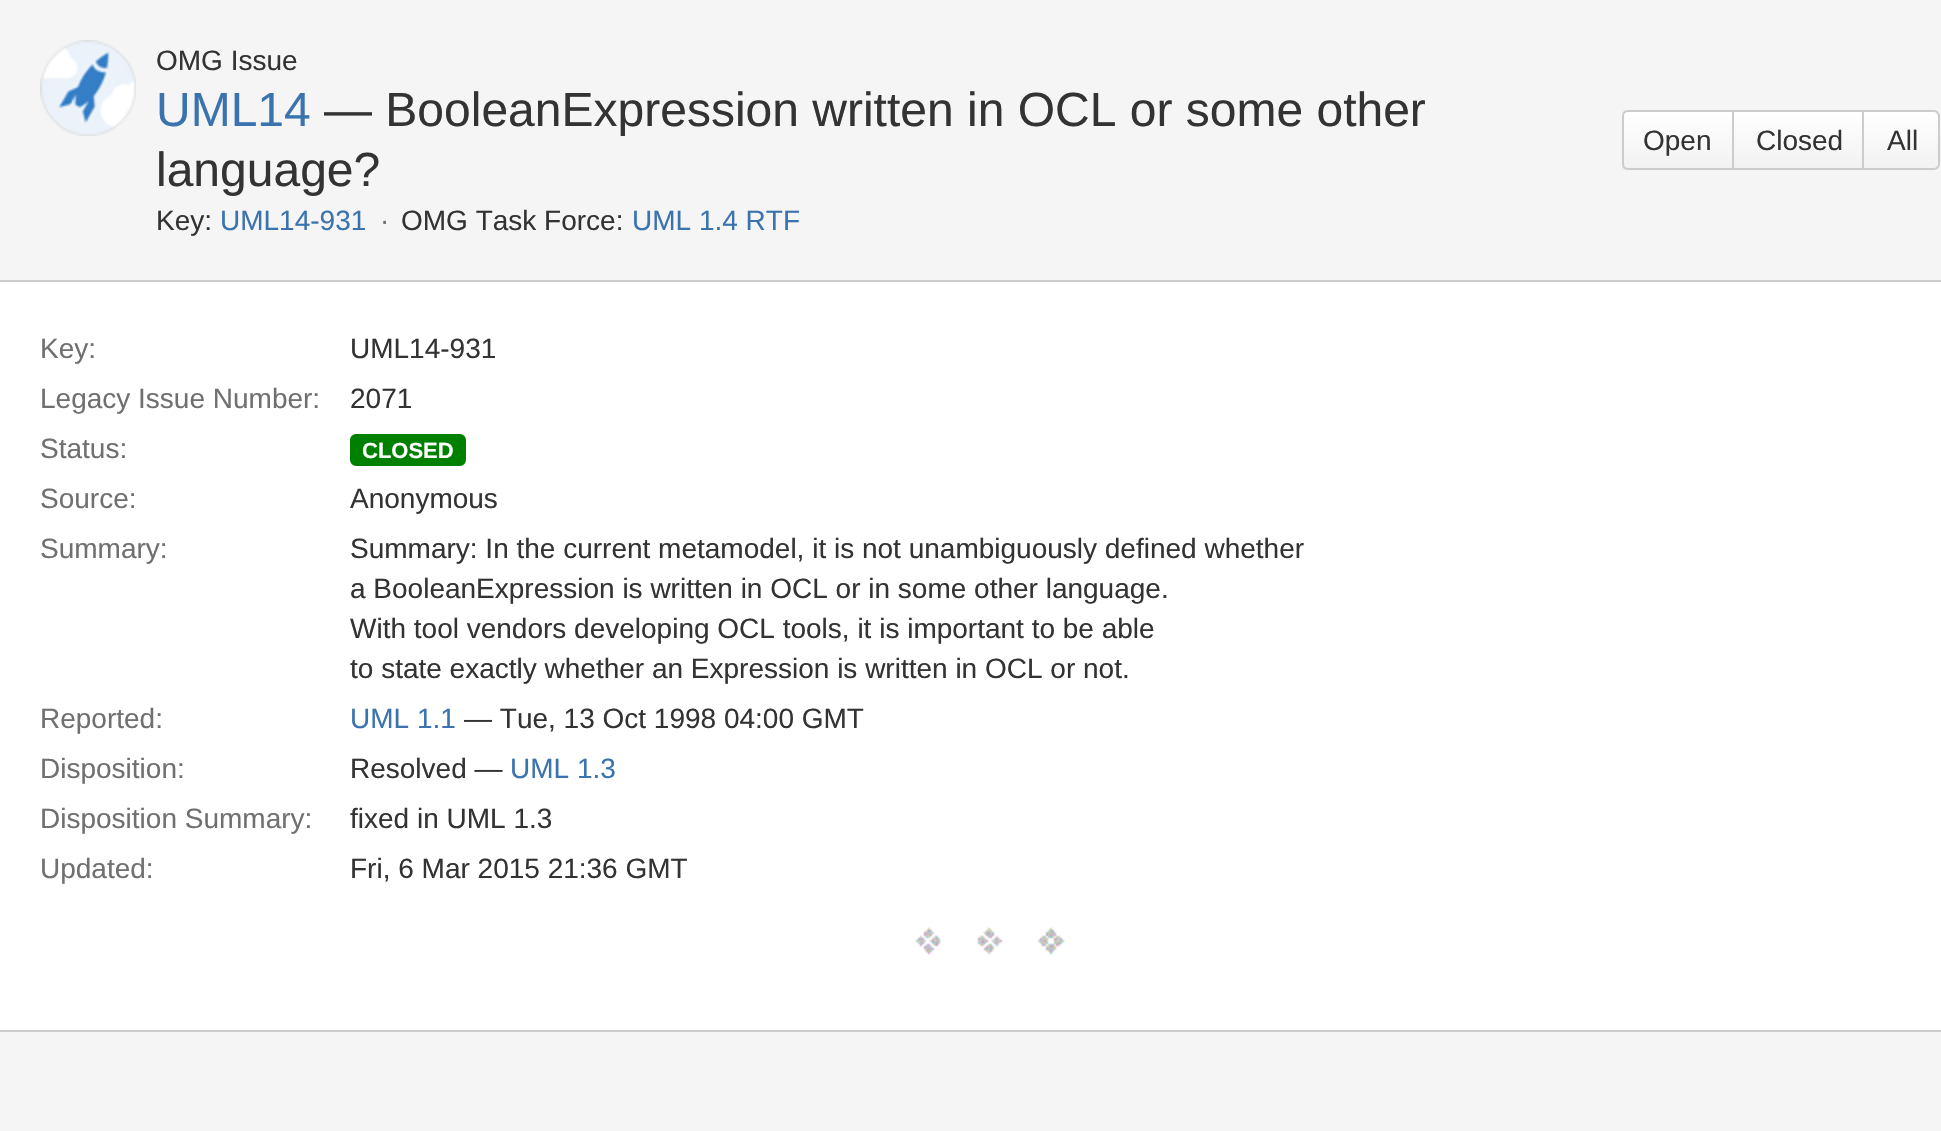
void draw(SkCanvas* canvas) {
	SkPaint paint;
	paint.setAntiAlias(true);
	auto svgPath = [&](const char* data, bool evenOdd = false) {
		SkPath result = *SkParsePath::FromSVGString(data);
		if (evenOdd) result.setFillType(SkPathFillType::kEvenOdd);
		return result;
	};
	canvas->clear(0xfff5f5f5);
	canvas->drawImageRect(SkImages::DeferredFromEncodedData(SkData::MakeFromFileName("img1.png")), SkRect::MakeXYWH(40, 40, 96, 96), SkSamplingOptions());
	SkFont f1(fontMgr->matchFamilyStyle("Liberation Sans", SkFontStyle::Normal()), 28);
	f1.setSubpixel(true);
	paint.setColor(0xff333333);
	canvas->drawString("OMG Issue", 156, 70, f1, paint);
	SkFont f2(fontMgr->matchFamilyStyle("Liberation Sans", SkFontStyle::Normal()), 48);
	f2.setSubpixel(true);
	paint.setColor(0xff3b73af);
	canvas->drawString("UML14", 156, 126, f2, paint);
	paint.setColor(0xff333333);
	canvas->drawString("— BooleanExpression written in OCL or some other", 324, 126, f2, paint);
	canvas->drawString("language?", 156, 186, f2, paint);
	canvas->drawString("Key:", 156, 230, f1, paint);
	paint.setColor(0xff3b73af);
	canvas->drawString("UML14-931", 220, 230, f1, paint);
	paint.setColor(0xff707070);
	canvas->drawString("·", 380, 230, f1, paint);
	paint.setColor(0xff333333);
	canvas->drawString("OMG Task Force:", 401, 230, f1, paint);
	paint.setColor(0xff3b73af);
	canvas->drawString("UML 1.4 RTF", 632, 230, f1, paint);
	canvas->save();
	canvas->clipPath(svgPath("M1628 110H1734V170H1628C1624.5 170 1622 167.5 1622 164V116C1622 112.5 1624.5 110 1628 110Z"), true);
	{
		const SkColor colors[] = {0xffffffff, 0xfff2f2f2};
		const float stops[] = {0, 1};
		const SkPoint ends[] = {{1678, 112}, {1678, 168}};
		paint.setShader(SkGradientShader::MakeLinear(ends, colors, stops, 2, SkTileMode::kClamp));
		paint.setAlpha(255);
	}
	canvas->drawRect(SkRect::MakeXYWH(1622, 112, 110, 56), paint);
	canvas->restore();
	paint.setStroke(true);
	paint.setStrokeWidth(2);
	paint.setShader(nullptr);
	paint.setColor(0xffcccccc);
	canvas->drawPath(svgPath("M1628 111H1733V169H1628C1625 169 1623 167 1623 164V116C1623 113 1625 111 1628 111Z"), paint);
	paint.setStroke(false);
	paint.setColor(0xff333333);
	canvas->drawString("Open", 1643, 150, f1, paint);
	{
		const SkColor colors[] = {0xffffffff, 0xfff2f2f2};
		const float stops[] = {0, 1};
		const SkPoint ends[] = {{1798, 112}, {1798, 168}};
		paint.setShader(SkGradientShader::MakeLinear(ends, colors, stops, 2, SkTileMode::kClamp));
		paint.setAlpha(255);
	}
	canvas->drawRect(SkRect::MakeXYWH(1734, 112, 128, 56), paint);
	paint.setShader(nullptr);
	paint.setColor(0xffcccccc);
	canvas->drawRect(SkRect::MakeXYWH(1734, 110, 130, 2), paint);
	canvas->drawRect(SkRect::MakeXYWH(1862, 110, 2, 60), paint);
	canvas->drawRect(SkRect::MakeXYWH(1734, 168, 130, 2), paint);
	paint.setColor(0xff333333);
	canvas->drawString("Closed", 1756, 150, f1, paint);
	{
		const SkColor colors[] = {0xffffffff, 0xfff2f2f2};
		const float stops[] = {0, 1};
		const SkPoint ends[] = {{1901, 112}, {1901, 168}};
		paint.setShader(SkGradientShader::MakeLinear(ends, colors, stops, 2, SkTileMode::kClamp));
		paint.setAlpha(255);
	}
	canvas->drawPath(svgPath("M1864 112H1934C1936 112 1938 114 1938 116V164C1938 166 1936 168 1934 168H1864Z"), paint);
	paint.setShader(nullptr);
	paint.setColor(0xffcccccc);
	canvas->drawPath(svgPath("M1864 110H1934C1937 110 1940 113 1940 116V164C1940 167 1937 170 1934 170H1864ZM1864 112H1934C1936 112 1938 114 1938 116V164C1938 166 1936 168 1934 168H1864Z", true), paint);
	paint.setColor(0xff333333);
	canvas->drawString("All", 1887, 150, f1, paint);
	paint.setColor(0xffffffff);
	canvas->drawRect(SkRect::MakeXYWH(0, 282, 1941, 748), paint);
	paint.setColor(0xffcccccc);
	canvas->drawRect(SkRect::MakeXYWH(0, 280, 1941, 2), paint);
	canvas->drawRect(SkRect::MakeXYWH(0, 1030, 1941, 2), paint);
	paint.setColor(0xff707070);
	canvas->drawString("Key:", 40, 358, f1, paint);
	paint.setColor(0xff333333);
	canvas->drawString("UML14-931", 350, 358, f1, paint);
	paint.setColor(0xff707070);
	canvas->drawString("Legacy Issue Number:", 40, 408, f1, paint);
	paint.setColor(0xff333333);
	canvas->drawString("2071", 350, 408, f1, paint);
	paint.setColor(0xff707070);
	canvas->drawString("Status:", 40, 458, f1, paint);
	paint.setColor(0xff008000);
	canvas->drawRoundRect(SkRect::MakeXYWH(351, 435, 114, 30), 5, 5, paint);
	paint.setStroke(true);
	canvas->drawRoundRect(SkRect::MakeXYWH(351, 435, 114, 30), 5, 5, paint);
	SkFont f3(fontMgr->matchFamilyStyle("Liberation Sans", SkFontStyle::Bold()), 22);
	f3.setSubpixel(true);
	paint.setStroke(false);
	paint.setColor(0xffffffff);
	canvas->drawString("CLOSED", 362, 458, f3, paint);
	paint.setColor(0xff707070);
	canvas->drawString("Source:", 40, 508, f1, paint);
	paint.setColor(0xff333333);
	canvas->drawString("Anonymous", 350, 508, f1, paint);
	paint.setColor(0xff707070);
	canvas->drawString("Summary:", 40, 558, f1, paint);
	paint.setColor(0xff333333);
	canvas->drawString("Summary: In the current metamodel, it is not unambiguously defined whether", 350, 558, f1, paint);
	canvas->drawString("a BooleanExpression is written in OCL or in some other language.", 350, 598, f1, paint);
	canvas->drawString("With tool vendors developing OCL tools, it is important to be able", 350, 638, f1, paint);
	canvas->drawString("to state exactly whether an Expression is written in OCL or not.", 350, 678, f1, paint);
	paint.setColor(0xff707070);
	canvas->drawString("Reported:", 40, 728, f1, paint);
	paint.setColor(0xff3b73af);
	canvas->drawString("UML 1.1", 350, 728, f1, paint);
	paint.setColor(0xff333333);
	canvas->drawString("— Tue, 13 Oct 1998 04:00 GMT", 464, 728, f1, paint);
	paint.setColor(0xff707070);
	canvas->drawString("Disposition:", 40, 778, f1, paint);
	paint.setColor(0xff333333);
	canvas->drawString("Resolved —", 350, 778, f1, paint);
	paint.setColor(0xff3b73af);
	canvas->drawString("UML 1.3", 510, 778, f1, paint);
	paint.setColor(0xff707070);
	canvas->drawString("Disposition Summary:", 40, 828, f1, paint);
	paint.setColor(0xff333333);
	canvas->drawString("fixed in UML 1.3", 350, 828, f1, paint);
	paint.setColor(0xff707070);
	canvas->drawString("Updated:", 40, 878, f1, paint);
	paint.setColor(0xff333333);
	canvas->drawString("Fri, 6 Mar 2015 21:36 GMT", 350, 878, f1, paint);
	canvas->drawImageRect(SkImages::DeferredFromEncodedData(SkData::MakeFromFileName("img2.png")), SkRect::MakeXYWH(915, 927, 150, 28), SkSamplingOptions());
}
